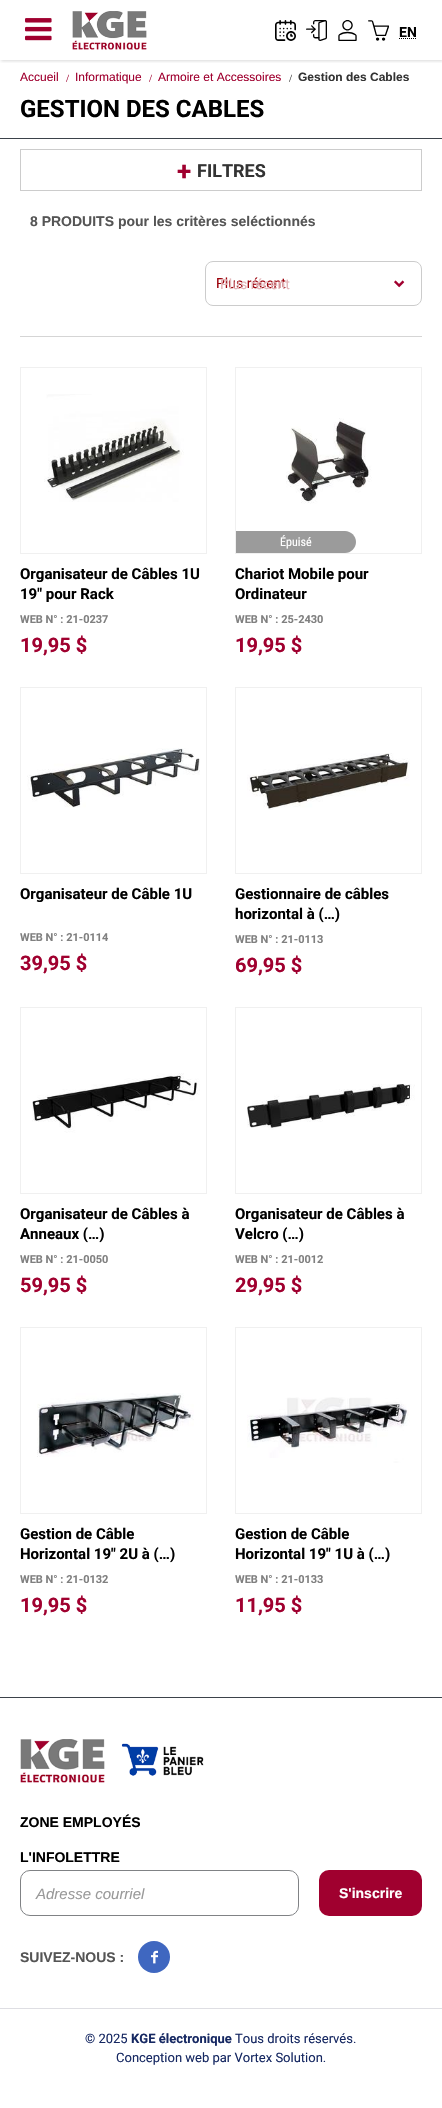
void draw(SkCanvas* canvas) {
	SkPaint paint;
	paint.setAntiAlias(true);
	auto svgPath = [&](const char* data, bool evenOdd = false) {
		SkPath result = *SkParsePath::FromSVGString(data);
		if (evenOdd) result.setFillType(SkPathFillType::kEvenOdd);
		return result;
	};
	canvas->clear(0xffffffff);
	canvas->save();
	canvas->clipRect(SkRect::MakeXYWH(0, 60, 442, 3));
	paint.setColor(0x26000000);
	paint.setMaskFilter(SkMaskFilter::MakeBlur(kNormal_SkBlurStyle, 1.5));
	canvas->drawRect(SkRect::MakeXYWH(1, 1, 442, 60), paint);
	paint.setMaskFilter(nullptr);
	canvas->restore();
	canvas->drawImageRect(SkImages::DeferredFromEncodedData(SkData::MakeFromFileName("img1.png")), SkRect::MakeXYWH(25, 18, 27, 23), SkSamplingOptions());
	canvas->drawImageRect(SkImages::DeferredFromEncodedData(SkData::MakeFromFileName("img2.png")), SkRect::MakeXYWH(72, 11, 75, 39), SkSamplingOptions());
	canvas->drawImageRect(SkImages::DeferredFromEncodedData(SkData::MakeFromFileName("img3.png")), SkRect::MakeXYWH(275, 20, 21, 21), SkSamplingOptions());
	canvas->drawImageRect(SkImages::DeferredFromEncodedData(SkData::MakeFromFileName("img4.png")), SkRect::MakeXYWH(306, 20, 21, 21), SkSamplingOptions());
	canvas->drawImageRect(SkImages::DeferredFromEncodedData(SkData::MakeFromFileName("img5.png")), SkRect::MakeXYWH(338, 20, 19, 21), SkSamplingOptions());
	canvas->drawImageRect(SkImages::DeferredFromEncodedData(SkData::MakeFromFileName("img6.png")), SkRect::MakeXYWH(368, 20, 21, 21), SkSamplingOptions());
	SkFont f1(fontMgr->matchFamilyStyle("Roboto", SkFontStyle::Bold()), 14);
	f1.setSubpixel(true);
	paint.setColor(0xff000000);
	canvas->drawString("EN", 399, 37, f1, paint);
	paint.setStroke(true);
	paint.setStrokeWidth(1);
	paint.setPathEffect(SkDashPathEffect::Make({{1, 1}}, 0));
	canvas->drawPath(svgPath("M399 38.5H417"), paint);
	paint.setPathEffect(nullptr);
	paint.setStroke(false);
	paint.setColor(0xff3b424a);
	canvas->drawRect(SkRect::MakeXYWH(0, 138, 442, 1), paint);
	SkFont f2(fontMgr->matchFamilyStyle("Liberation Sans", SkFontStyle::Normal()), 12);
	f2.setSubpixel(true);
	paint.setColor(0xffa0002f);
	canvas->drawString("Accueil", 20, 81, f2, paint);
	SkFont f3(fontMgr->matchFamilyStyle("Liberation Serif", SkFontStyle::Normal()), 11);
	f3.setSubpixel(true);
	canvas->drawString("/", 66, 82, f3, paint);
	canvas->drawString("Informatique", 75, 81, f2, paint);
	canvas->drawString("/", 149, 82, f3, paint);
	canvas->drawString("Armoire et Accessoires", 158, 81, f2, paint);
	paint.setColor(0xff333333);
	canvas->drawString("/", 289, 82, f3, paint);
	SkFont f4(fontMgr->matchFamilyStyle("Liberation Sans", SkFontStyle::Bold()), 12);
	f4.setSubpixel(true);
	canvas->drawString("Gestion des Cables", 298, 81, f4, paint);
	SkFont f5(fontMgr->matchFamilyStyle("Roboto", SkFontStyle::Bold()), 24);
	f5.setSubpixel(true);
	paint.setColor(0xff000000);
	canvas->drawString("GESTION DES CABLES", 20, 117, f5, paint);
	paint.setStroke(true);
	paint.setColor(0xffcccccc);
	canvas->drawRect(SkRect::MakeXYWH(20.5, 149.5, 401, 41), paint);
	SkFont f6(fontMgr->matchFamilyStyle("Roboto", SkFontStyle::Bold()), 26);
	f6.setSubpixel(true);
	paint.setStroke(false);
	paint.setColor(0xffa0002f);
	canvas->drawString("+", 177, 180, f6, paint);
	SkFont f7(fontMgr->matchFamilyStyle("Roboto", SkFontStyle::Bold()), 18);
	f7.setSubpixel(true);
	paint.setColor(0xff333333);
	canvas->drawString("FILTRES", 197, 177, f7, paint);
	paint.setColor(0xffd5d5d5);
	canvas->drawRect(SkRect::MakeXYWH(20, 336, 402, 1), paint);
	SkFont f8(fontMgr->matchFamilyStyle("Liberation Sans", SkFontStyle::Bold()), 14);
	f8.setSubpixel(true);
	paint.setColor(0xff555555);
	canvas->drawString("8 PRODUITS pour les critères seléctionnés", 30, 226, f8, paint);
	canvas->drawImageRect(SkImages::DeferredFromEncodedData(SkData::MakeFromFileName("img7.png")), SkRect::MakeXYWH(394, 280, 11, 8), SkSamplingOptions());
	paint.setStroke(true);
	paint.setColor(0xffcccccc);
	canvas->drawRoundRect(SkRect::MakeXYWH(205.5, 261.5, 216, 44), 7.5, 7.5, paint);
	SkFont f9(fontMgr->matchFamilyStyle("Roboto", SkFontStyle::Normal()), 14);
	f9.setSubpixel(true);
	paint.setStroke(false);
	paint.setColor(0xff9b0009);
	canvas->drawString("Plus récent", 216, 288, f9, paint);
	paint.setColor(0xffe2b5b8);
	canvas->drawString("Plus récent", 220, 289, f9, paint);
	paint.setStroke(true);
	paint.setColor(0xfff0f0f0);
	canvas->drawRect(SkRect::MakeXYWH(20.5, 367.5, 186, 186), paint);
	canvas->drawImageRect(SkImages::DeferredFromEncodedData(SkData::MakeFromFileName("img8.png")), SkRect::MakeXYWH(44, 394, 140, 108), SkSamplingOptions());
	SkFont f10(fontMgr->matchFamilyStyle("Roboto", SkFontStyle::Bold()), 15);
	f10.setSubpixel(true);
	paint.setStroke(false);
	paint.setColor(0xff000000);
	canvas->drawString("Organisateur de Câbles 1U", 20, 579, f10, paint);
	canvas->drawString("19\" pour Rack", 20, 599, f10, paint);
	SkFont f11(fontMgr->matchFamilyStyle("Roboto", SkFontStyle::Bold()), 11);
	f11.setSubpixel(true);
	paint.setColor(0xff808080);
	canvas->drawString("WEB N° : 21-0237", 20, 623, f11, paint);
	SkFont f12(fontMgr->matchFamilyStyle("Roboto", SkFontStyle::Bold()), 20);
	f12.setSubpixel(true);
	paint.setColor(0xffa0002f);
	canvas->drawString("19,95 $", 20, 652, f12, paint);
	paint.setStroke(true);
	paint.setColor(0xfff0f0f0);
	canvas->drawRect(SkRect::MakeXYWH(235.5, 367.5, 186, 186), paint);
	canvas->drawImageRect(SkImages::DeferredFromEncodedData(SkData::MakeFromFileName("img9.png")), SkRect::MakeXYWH(286, 418, 86, 86), SkSamplingOptions());
	paint.setStroke(false);
	paint.setColor(0xff9b9b9b);
	canvas->drawPath(svgPath("M236 531H345C351 531 356 536 356 542C356 548 351 553 345 553H236Z"), paint);
	SkFont f13(fontMgr->matchFamilyStyle("Roboto Condensed", SkFontStyle::Normal()), 12);
	f13.setSubpixel(true);
	paint.setColor(0xffffffff);
	canvas->drawString("Épuisé", 280, 546, f13, paint);
	paint.setColor(0xff000000);
	canvas->drawString("Chariot Mobile pour", 235, 579, f10, paint);
	canvas->drawString("Ordinateur", 235, 599, f10, paint);
	paint.setColor(0xff808080);
	canvas->drawString("WEB N° : 25-2430", 235, 623, f11, paint);
	paint.setColor(0xffa0002f);
	canvas->drawString("19,95 $", 235, 652, f12, paint);
	paint.setStroke(true);
	paint.setColor(0xfff0f0f0);
	canvas->drawRect(SkRect::MakeXYWH(20.5, 687.5, 186, 186), paint);
	canvas->drawImageRect(SkImages::DeferredFromEncodedData(SkData::MakeFromFileName("img10.png")), SkRect::MakeXYWH(27, 748, 173, 60), SkSamplingOptions());
	paint.setStroke(false);
	paint.setColor(0xff000000);
	canvas->drawString("Organisateur de Câble 1U", 20, 899, f10, paint);
	paint.setColor(0xff808080);
	canvas->drawString("WEB N° : 21-0114", 20, 941, f11, paint);
	paint.setColor(0xffa0002f);
	canvas->drawString("39,95 $", 20, 970, f12, paint);
	paint.setStroke(true);
	paint.setColor(0xfff0f0f0);
	canvas->drawRect(SkRect::MakeXYWH(235.5, 687.5, 186, 186), paint);
	canvas->drawImageRect(SkImages::DeferredFromEncodedData(SkData::MakeFromFileName("img11.png")), SkRect::MakeXYWH(247, 753, 163, 57), SkSamplingOptions());
	paint.setStroke(false);
	paint.setColor(0xff000000);
	canvas->drawString("Gestionnaire de câbles", 235, 899, f10, paint);
	canvas->drawString("horizontal à (…)", 235, 919, f10, paint);
	paint.setColor(0xff808080);
	canvas->drawString("WEB N° : 21-0113", 235, 943, f11, paint);
	paint.setColor(0xffa0002f);
	canvas->drawString("69,95 $", 235, 972, f12, paint);
	paint.setStroke(true);
	paint.setColor(0xfff0f0f0);
	canvas->drawRect(SkRect::MakeXYWH(20.5, 1007.5, 186, 186), paint);
	canvas->drawImageRect(SkImages::DeferredFromEncodedData(SkData::MakeFromFileName("img12.png")), SkRect::MakeXYWH(32, 1073, 168, 60), SkSamplingOptions());
	paint.setStroke(false);
	paint.setColor(0xff000000);
	canvas->drawString("Organisateur de Câbles à", 20, 1219, f10, paint);
	canvas->drawString("Anneaux (…)", 20, 1239, f10, paint);
	paint.setColor(0xff808080);
	canvas->drawString("WEB N° : 21-0050", 20, 1263, f11, paint);
	paint.setColor(0xffa0002f);
	canvas->drawString("59,95 $", 20, 1292, f12, paint);
	paint.setStroke(true);
	paint.setColor(0xfff0f0f0);
	canvas->drawRect(SkRect::MakeXYWH(235.5, 1007.5, 186, 186), paint);
	canvas->drawImageRect(SkImages::DeferredFromEncodedData(SkData::MakeFromFileName("img13.png")), SkRect::MakeXYWH(247, 1084, 168, 46), SkSamplingOptions());
	paint.setStroke(false);
	paint.setColor(0xff000000);
	canvas->drawString("Organisateur de Câbles à", 235, 1219, f10, paint);
	canvas->drawString("Velcro (…)", 235, 1239, f10, paint);
	paint.setColor(0xff808080);
	canvas->drawString("WEB N° : 21-0012", 235, 1263, f11, paint);
	paint.setColor(0xffa0002f);
	canvas->drawString("29,95 $", 235, 1292, f12, paint);
	paint.setStroke(true);
	paint.setColor(0xfff0f0f0);
	canvas->drawRect(SkRect::MakeXYWH(20.5, 1327.5, 186, 186), paint);
	canvas->drawImageRect(SkImages::DeferredFromEncodedData(SkData::MakeFromFileName("img14.png")), SkRect::MakeXYWH(37, 1393, 157, 64), SkSamplingOptions());
	paint.setStroke(false);
	paint.setColor(0xff000000);
	canvas->drawString("Gestion de Câble", 20, 1539, f10, paint);
	canvas->drawString("Horizontal 19\" 2U à (…)", 20, 1559, f10, paint);
	paint.setColor(0xff808080);
	canvas->drawString("WEB N° : 21-0132", 20, 1583, f11, paint);
	paint.setColor(0xffa0002f);
	canvas->drawString("19,95 $", 20, 1612, f12, paint);
	paint.setStroke(true);
	paint.setColor(0xfff0f0f0);
	canvas->drawRect(SkRect::MakeXYWH(235.5, 1327.5, 186, 186), paint);
	canvas->drawImageRect(SkImages::DeferredFromEncodedData(SkData::MakeFromFileName("img15.png")), SkRect::MakeXYWH(247, 1397, 163, 66), SkSamplingOptions());
	paint.setStroke(false);
	paint.setColor(0xff000000);
	canvas->drawString("Gestion de Câble", 235, 1539, f10, paint);
	canvas->drawString("Horizontal 19\" 1U à (…)", 235, 1559, f10, paint);
	paint.setColor(0xff808080);
	canvas->drawString("WEB N° : 21-0133", 235, 1583, f11, paint);
	paint.setColor(0xffa0002f);
	canvas->drawString("11,95 $", 235, 1612, f12, paint);
	paint.setColor(0xff3b424a);
	canvas->drawRect(SkRect::MakeXYWH(0, 1697, 442, 1), paint);
	canvas->drawImageRect(SkImages::DeferredFromEncodedData(SkData::MakeFromFileName("img16.png")), SkRect::MakeXYWH(20, 1739, 85, 44), SkSamplingOptions());
	canvas->drawImageRect(SkImages::DeferredFromEncodedData(SkData::MakeFromFileName("img17.png")), SkRect::MakeXYWH(121, 1743, 83, 33), SkSamplingOptions());
	paint.setColor(0xff000000);
	canvas->drawString("ZONE EMPLOYÉS", 20, 1827, f8, paint);
	canvas->drawString("L'INFOLETTRE", 20, 1862, f8, paint);
	paint.setStroke(true);
	paint.setColor(0xff808285);
	canvas->drawRoundRect(SkRect::MakeXYWH(20.5, 1870.5, 278, 45), 9.5, 9.5, paint);
	SkFont f14(fontMgr->matchFamilyStyle("Liberation Sans", SkFontStyle::Italic()), 15);
	f14.setSubpixel(true);
	paint.setStroke(false);
	paint.setColor(0xff999999);
	canvas->drawString("Adresse courriel", 36, 1899, f14, paint);
	paint.setColor(0xffa0002f);
	canvas->drawRoundRect(SkRect::MakeXYWH(319, 1870, 103, 46), 10, 10, paint);
	paint.setColor(0xffffffff);
	canvas->drawString("S'inscrire", 339, 1898, f8, paint);
	paint.setColor(0xff555555);
	canvas->drawString("SUIVEZ-NOUS :", 20, 1962, f8, paint);
	paint.setColor(0xff3f67c0);
	canvas->drawCircle(154, 1957, 16, paint);
	canvas->drawImageRect(SkImages::DeferredFromEncodedData(SkData::MakeFromFileName("img18.png")), SkRect::MakeXYWH(151, 1950, 7, 14), SkSamplingOptions());
	paint.setColor(0xffdedee3);
	canvas->drawRect(SkRect::MakeXYWH(0, 2008, 442, 1), paint);
	SkFont f15(fontMgr->matchFamilyStyle("Roboto", SkFontStyle::Normal()), 13);
	f15.setSubpixel(true);
	paint.setColor(0xff162862);
	canvas->drawString("© 2025", 85, 2043, f15, paint);
	SkFont f16(fontMgr->matchFamilyStyle("Roboto", SkFontStyle::Bold()), 13);
	f16.setSubpixel(true);
	canvas->drawString("KGE électronique", 131, 2043, f16, paint);
	canvas->drawString("Tous droits réservés.", 235, 2043, f15, paint);
	canvas->drawString("Conception web par Vortex Solution.", 116, 2062, f15, paint);
}
